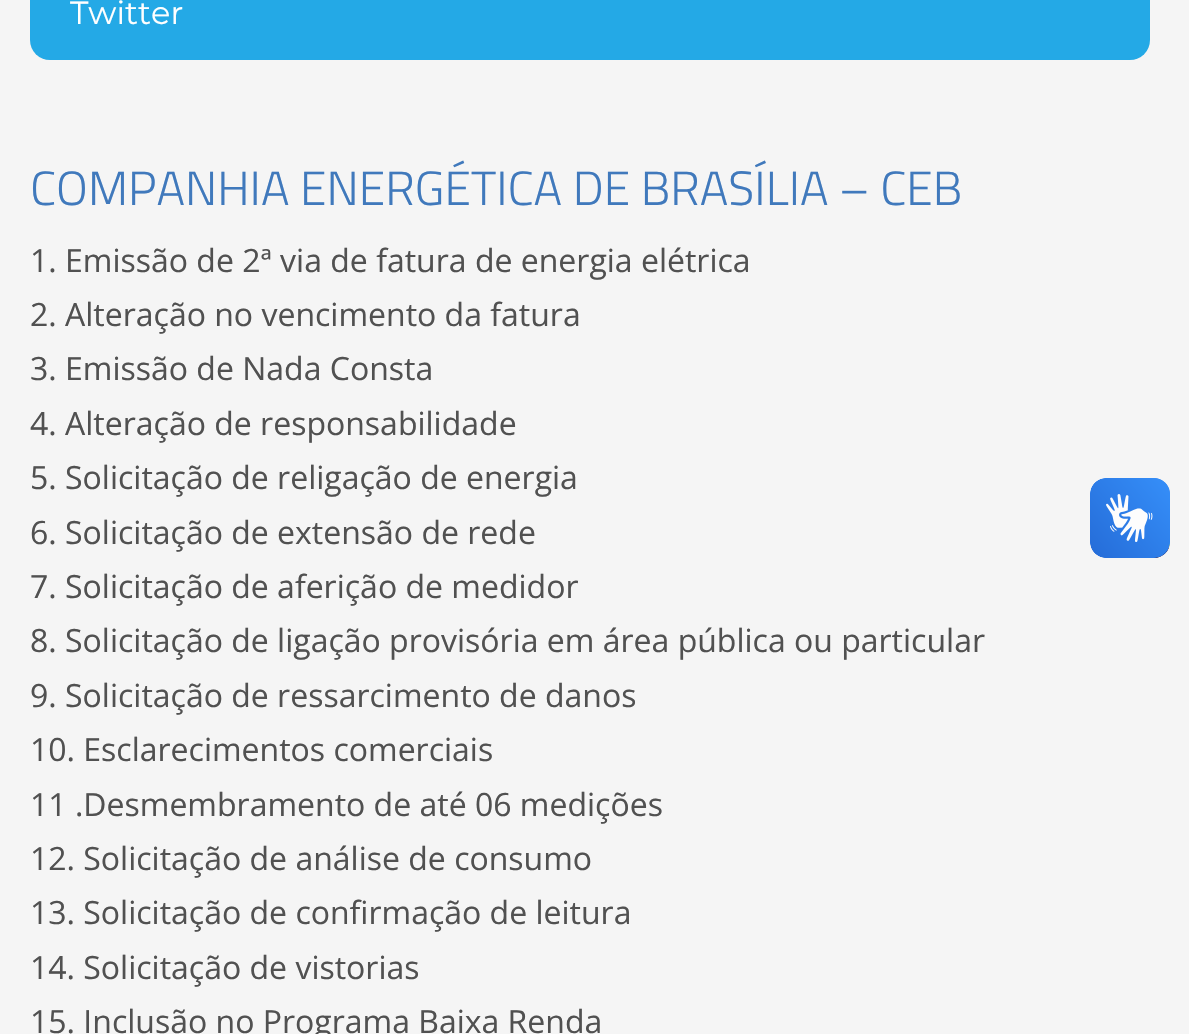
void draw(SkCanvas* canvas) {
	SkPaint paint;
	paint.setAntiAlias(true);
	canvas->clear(0xfff5f5f5);
	paint.setColor(0xff24a9e6);
	canvas->drawRoundRect(SkRect::MakeXYWH(30, -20, 1120, 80), 20, 20, paint);
	SkFont f1(fontMgr->matchFamilyStyle("Montserrat", SkFontStyle(100, SkFontStyle::kNormal_Width, SkFontStyle::kUpright_Slant)), 32);
	f1.setSubpixel(true);
	paint.setColor(0xffffffff);
	canvas->drawString("Twitter", 70, 24, f1, paint);
	SkFont f2(fontMgr->matchFamilyStyle("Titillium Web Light", SkFontStyle(300, SkFontStyle::kNormal_Width, SkFontStyle::kUpright_Slant)), 48);
	f2.setSubpixel(true);
	paint.setColor(0xff4079bc);
	canvas->drawString("COMPANHIA ENERGÉTICA DE BRASÍLIA – CEB", 30, 205, f2, paint);
	SkFont f3(fontMgr->matchFamilyStyle("Open Sans", SkFontStyle::Normal()), 32);
	f3.setSubpixel(true);
	paint.setColor(0xff515151);
	canvas->drawString("1. Emissão de 2ª via de fatura de energia elétrica", 30, 272, f3, paint);
	canvas->drawString("2. Alteração no vencimento da fatura", 30, 326, f3, paint);
	canvas->drawString("3. Emissão de Nada Consta", 30, 380, f3, paint);
	canvas->drawString("4. Alteração de responsabilidade", 30, 435, f3, paint);
	canvas->drawString("5. Solicitação de religação de energia", 30, 489, f3, paint);
	canvas->drawString("6. Solicitação de extensão de rede", 30, 544, f3, paint);
	canvas->drawString("7. Solicitação de aferição de medidor", 30, 598, f3, paint);
	canvas->drawString("8. Solicitação de ligação provisória em área pública ou particular", 30, 652, f3, paint);
	canvas->drawString("9. Solicitação de ressarcimento de danos", 30, 707, f3, paint);
	canvas->drawString("10. Esclarecimentos comerciais", 30, 761, f3, paint);
	canvas->drawString("11 .Desmembramento de até 06 medições", 30, 816, f3, paint);
	canvas->drawString("12. Solicitação de análise de consumo", 30, 870, f3, paint);
	canvas->drawString("13. Solicitação de confirmação de leitura", 30, 924, f3, paint);
	canvas->drawString("14. Solicitação de vistorias", 30, 979, f3, paint);
	canvas->drawString("15. Inclusão no Programa Baixa Renda", 30, 1033, f3, paint);
	canvas->drawImageRect(SkImages::DeferredFromEncodedData(SkData::MakeFromFileName("img1.png")), SkRect::MakeXYWH(1090, 478, 80, 80), SkSamplingOptions());
	canvas->drawImageRect(SkImages::DeferredFromEncodedData(SkData::MakeFromFileName("img2.png")), SkRect::MakeXYWH(1090, 478, 80, 80), SkSamplingOptions());
}
